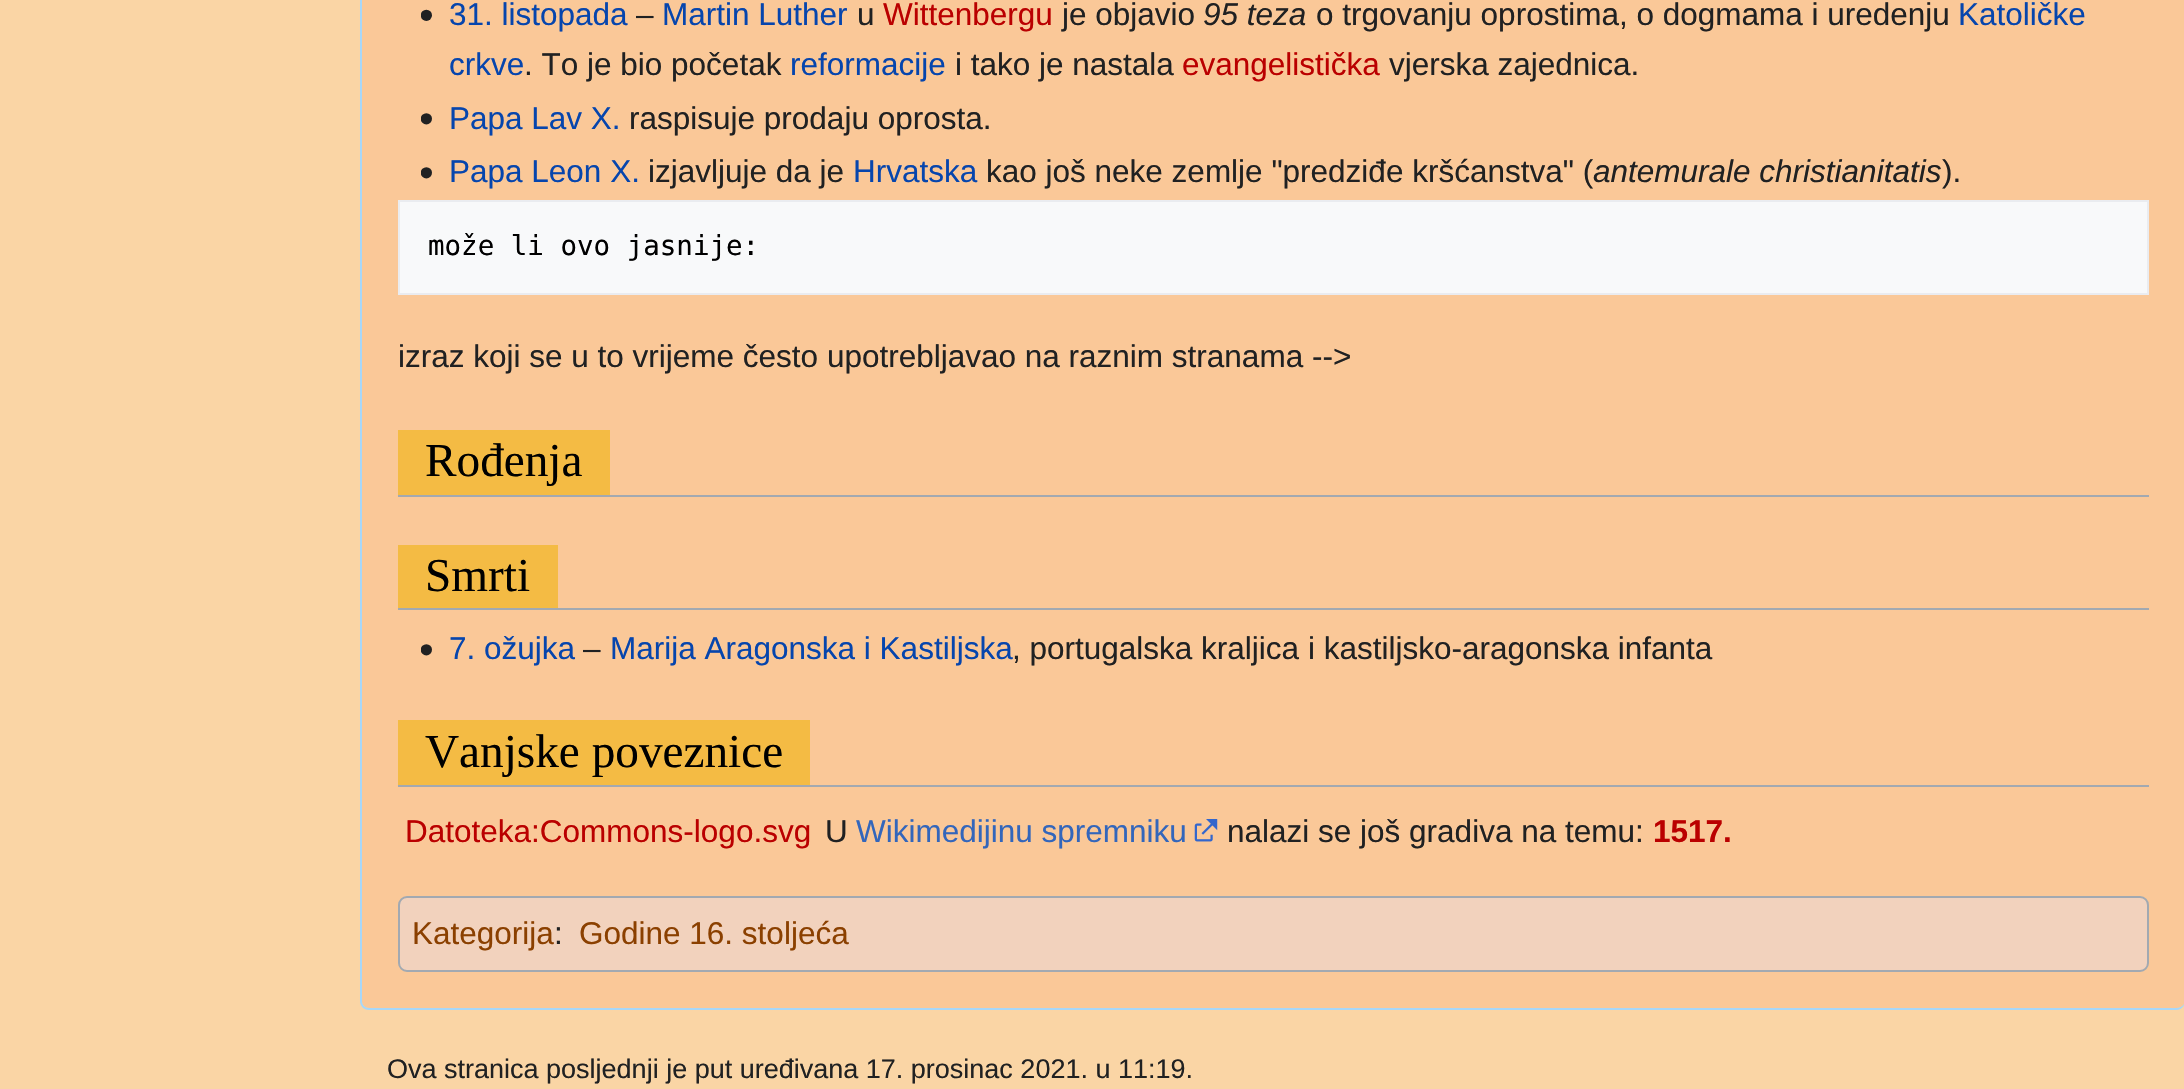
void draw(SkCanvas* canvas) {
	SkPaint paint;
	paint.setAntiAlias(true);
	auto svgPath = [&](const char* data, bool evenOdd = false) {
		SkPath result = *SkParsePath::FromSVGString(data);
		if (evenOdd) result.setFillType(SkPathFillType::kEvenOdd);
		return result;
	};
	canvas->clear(0xfffad5a5);
	paint.setColor(0xfffac898);
	canvas->drawPath(svgPath("M369-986H2176C2181-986 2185-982 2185-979V1001C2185 1005 2181 1008 2176 1008H369C365 1008 362 1005 362 1001V-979C362-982 365-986 369-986Z"), paint);
	paint.setColor(0xffa7d7f9);
	canvas->drawPath(svgPath("M369-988H2176C2181-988 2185-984 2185-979V1001C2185 1006 2181 1010 2176 1010H369C364 1010 360 1006 360 1001V-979C360-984 364-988 369-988ZM369-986H2176C2181-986 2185-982 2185-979V1001C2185 1005 2181 1008 2176 1008H369C365 1008 362 1005 362 1001V-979C362-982 365-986 369-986Z", true), paint);
	canvas->drawImageRect(SkImages::DeferredFromEncodedData(SkData::MakeFromFileName("img1.png")), SkRect::MakeXYWH(421, 9, 11, 12), SkSamplingOptions());
	SkFont f1(fontMgr->matchFamilyStyle("Liberation Sans", SkFontStyle::Normal()), 31.5);
	f1.setSubpixel(true);
	paint.setColor(0xff0645ad);
	canvas->drawString("31. listopada", 449, 25, f1, paint);
	paint.setColor(0xff202122);
	canvas->drawString("–", 636, 25, f1, paint);
	paint.setColor(0xff0645ad);
	canvas->drawString("Martin Luther", 662, 25, f1, paint);
	paint.setColor(0xff202122);
	canvas->drawString("u", 857, 25, f1, paint);
	paint.setColor(0xffba0000);
	canvas->drawString("Wittenbergu", 883, 25, f1, paint);
	paint.setColor(0xff202122);
	canvas->drawString("je objavio", 1062, 25, f1, paint);
	SkFont f2(fontMgr->matchFamilyStyle("Liberation Sans", SkFontStyle::Italic()), 31.5);
	f2.setSubpixel(true);
	canvas->drawString("95 teza", 1203, 25, f2, paint);
	canvas->drawString("o trgovanju oprostima, o dogmama i uredenju", 1316, 25, f1, paint);
	paint.setColor(0xff0645ad);
	canvas->drawString("Katoličke", 1958, 25, f1, paint);
	canvas->drawString("crkve", 449, 75, f1, paint);
	paint.setColor(0xff202122);
	canvas->drawString(". To je bio početak", 524, 75, f1, paint);
	paint.setColor(0xff0645ad);
	canvas->drawString("reformacije", 790, 75, f1, paint);
	paint.setColor(0xff202122);
	canvas->drawString("i tako je nastala", 955, 75, f1, paint);
	paint.setColor(0xffba0000);
	canvas->drawString("evangelistička", 1182, 75, f1, paint);
	paint.setColor(0xff202122);
	canvas->drawString("vjerska zajednica.", 1389, 75, f1, paint);
	canvas->drawImageRect(SkImages::DeferredFromEncodedData(SkData::MakeFromFileName("img2.png")), SkRect::MakeXYWH(421, 113, 11, 12), SkSamplingOptions());
	paint.setColor(0xff0645ad);
	canvas->drawString("Papa Lav X.", 449, 129, f1, paint);
	paint.setColor(0xff202122);
	canvas->drawString("raspisuje prodaju oprosta.", 629, 129, f1, paint);
	canvas->drawImageRect(SkImages::DeferredFromEncodedData(SkData::MakeFromFileName("img2.png")), SkRect::MakeXYWH(421, 167, 11, 12), SkSamplingOptions());
	paint.setColor(0xff0645ad);
	canvas->drawString("Papa Leon X.", 449, 182, f1, paint);
	paint.setColor(0xff202122);
	canvas->drawString("izjavljuje da je", 648, 182, f1, paint);
	paint.setColor(0xff0645ad);
	canvas->drawString("Hrvatska", 853, 182, f1, paint);
	paint.setColor(0xff202122);
	canvas->drawString("kao još neke zemlje \"predziđe kršćanstva\" (", 986, 182, f1, paint);
	canvas->drawString("antemurale christianitatis", 1593, 182, f2, paint);
	canvas->drawString(").", 1942, 182, f1, paint);
	paint.setColor(0xfff8f9fa);
	canvas->drawRect(SkRect::MakeXYWH(399, 201, 1749, 93), paint);
	paint.setStroke(true);
	paint.setStrokeWidth(2);
	paint.setColor(0xffeaecf0);
	canvas->drawRect(SkRect::MakeXYWH(399, 201, 1749, 93), paint);
	SkFont f3(fontMgr->matchFamilyStyle("DejaVu Sans Mono", SkFontStyle::Normal()), 27.5);
	f3.setSubpixel(true);
	paint.setStroke(false);
	paint.setColor(0xff000000);
	canvas->drawString("može li ovo jasnije:", 428, 255, f3, paint);
	paint.setColor(0xff202122);
	canvas->drawString("izraz koji se u to vrijeme često upotrebljavao na raznim stranama -->", 398, 367, f1, paint);
	paint.setColor(0xffa2a9b1);
	canvas->drawRect(SkRect::MakeXYWH(398, 495, 1751, 2), paint);
	paint.setColor(0xfff4bb44);
	canvas->drawRect(SkRect::MakeXYWH(398, 430, 212, 65), paint);
	SkFont f4(fontMgr->matchFamilyStyle("Liberation Serif", SkFontStyle::Normal()), 47.25);
	f4.setSubpixel(true);
	paint.setColor(0xff000000);
	canvas->drawString("Rođenja", 425, 476, f4, paint);
	paint.setColor(0xffa2a9b1);
	canvas->drawRect(SkRect::MakeXYWH(398, 608, 1751, 2), paint);
	paint.setColor(0xfff4bb44);
	canvas->drawRect(SkRect::MakeXYWH(398, 545, 160, 63), paint);
	paint.setColor(0xff000000);
	canvas->drawString("Smrti", 425, 591, f4, paint);
	canvas->drawImageRect(SkImages::DeferredFromEncodedData(SkData::MakeFromFileName("img2.png")), SkRect::MakeXYWH(421, 644, 11, 12), SkSamplingOptions());
	paint.setColor(0xff0645ad);
	canvas->drawString("7. ožujka", 449, 659, f1, paint);
	paint.setColor(0xff202122);
	canvas->drawString("–", 583, 659, f1, paint);
	paint.setColor(0xff0645ad);
	canvas->drawString("Marija Aragonska i Kastiljska", 610, 659, f1, paint);
	paint.setColor(0xff202122);
	canvas->drawString(", portugalska kraljica i kastiljsko-aragonska infanta", 1012, 659, f1, paint);
	paint.setColor(0xffa2a9b1);
	canvas->drawRect(SkRect::MakeXYWH(398, 785, 1751, 2), paint);
	paint.setColor(0xfff4bb44);
	canvas->drawRect(SkRect::MakeXYWH(398, 720, 412, 65), paint);
	paint.setColor(0xff000000);
	canvas->drawString("Vanjske poveznice", 425, 767, f4, paint);
	paint.setColor(0xffba0000);
	canvas->drawString("Datoteka:Commons-logo.svg", 405, 842, f1, paint);
	paint.setColor(0xff202122);
	canvas->drawString("U", 825, 842, f1, paint);
	paint.setColor(0xff3366bb);
	canvas->drawString("Wikimedijinu spremniku", 856, 842, f1, paint);
	canvas->drawImageRect(SkImages::DeferredFromEncodedData(SkData::MakeFromFileName("img3.png")), SkRect::MakeXYWH(1194, 819, 24, 23), SkSamplingOptions());
	paint.setColor(0xff202122);
	canvas->drawString("nalazi se još gradiva na temu:", 1227, 842, f1, paint);
	SkFont f5(fontMgr->matchFamilyStyle("Liberation Sans", SkFontStyle::Bold()), 31.5);
	f5.setSubpixel(true);
	paint.setColor(0xffba0000);
	canvas->drawString("1517.", 1653, 842, f5, paint);
	paint.setColor(0xfff2d2bd);
	canvas->drawRoundRect(SkRect::MakeXYWH(399, 897, 1749, 74), 8, 8, paint);
	paint.setStroke(true);
	paint.setColor(0xffa2a9b1);
	canvas->drawRoundRect(SkRect::MakeXYWH(399, 897, 1749, 74), 8, 8, paint);
	paint.setStroke(false);
	paint.setColor(0xff8b4000);
	canvas->drawString("Kategorija", 412, 944, f1, paint);
	paint.setColor(0xff202122);
	canvas->drawString(":", 554, 944, f1, paint);
	paint.setColor(0xff8b4000);
	canvas->drawString("Godine 16. stoljeća", 579, 944, f1, paint);
	SkFont f6(fontMgr->matchFamilyStyle("Liberation Sans", SkFontStyle::Normal()), 27);
	f6.setSubpixel(true);
	paint.setColor(0xff202122);
	canvas->drawString("Ova stranica posljednji je put uređivana 17. prosinac 2021. u 11:19.", 387, 1078, f6, paint);
}
